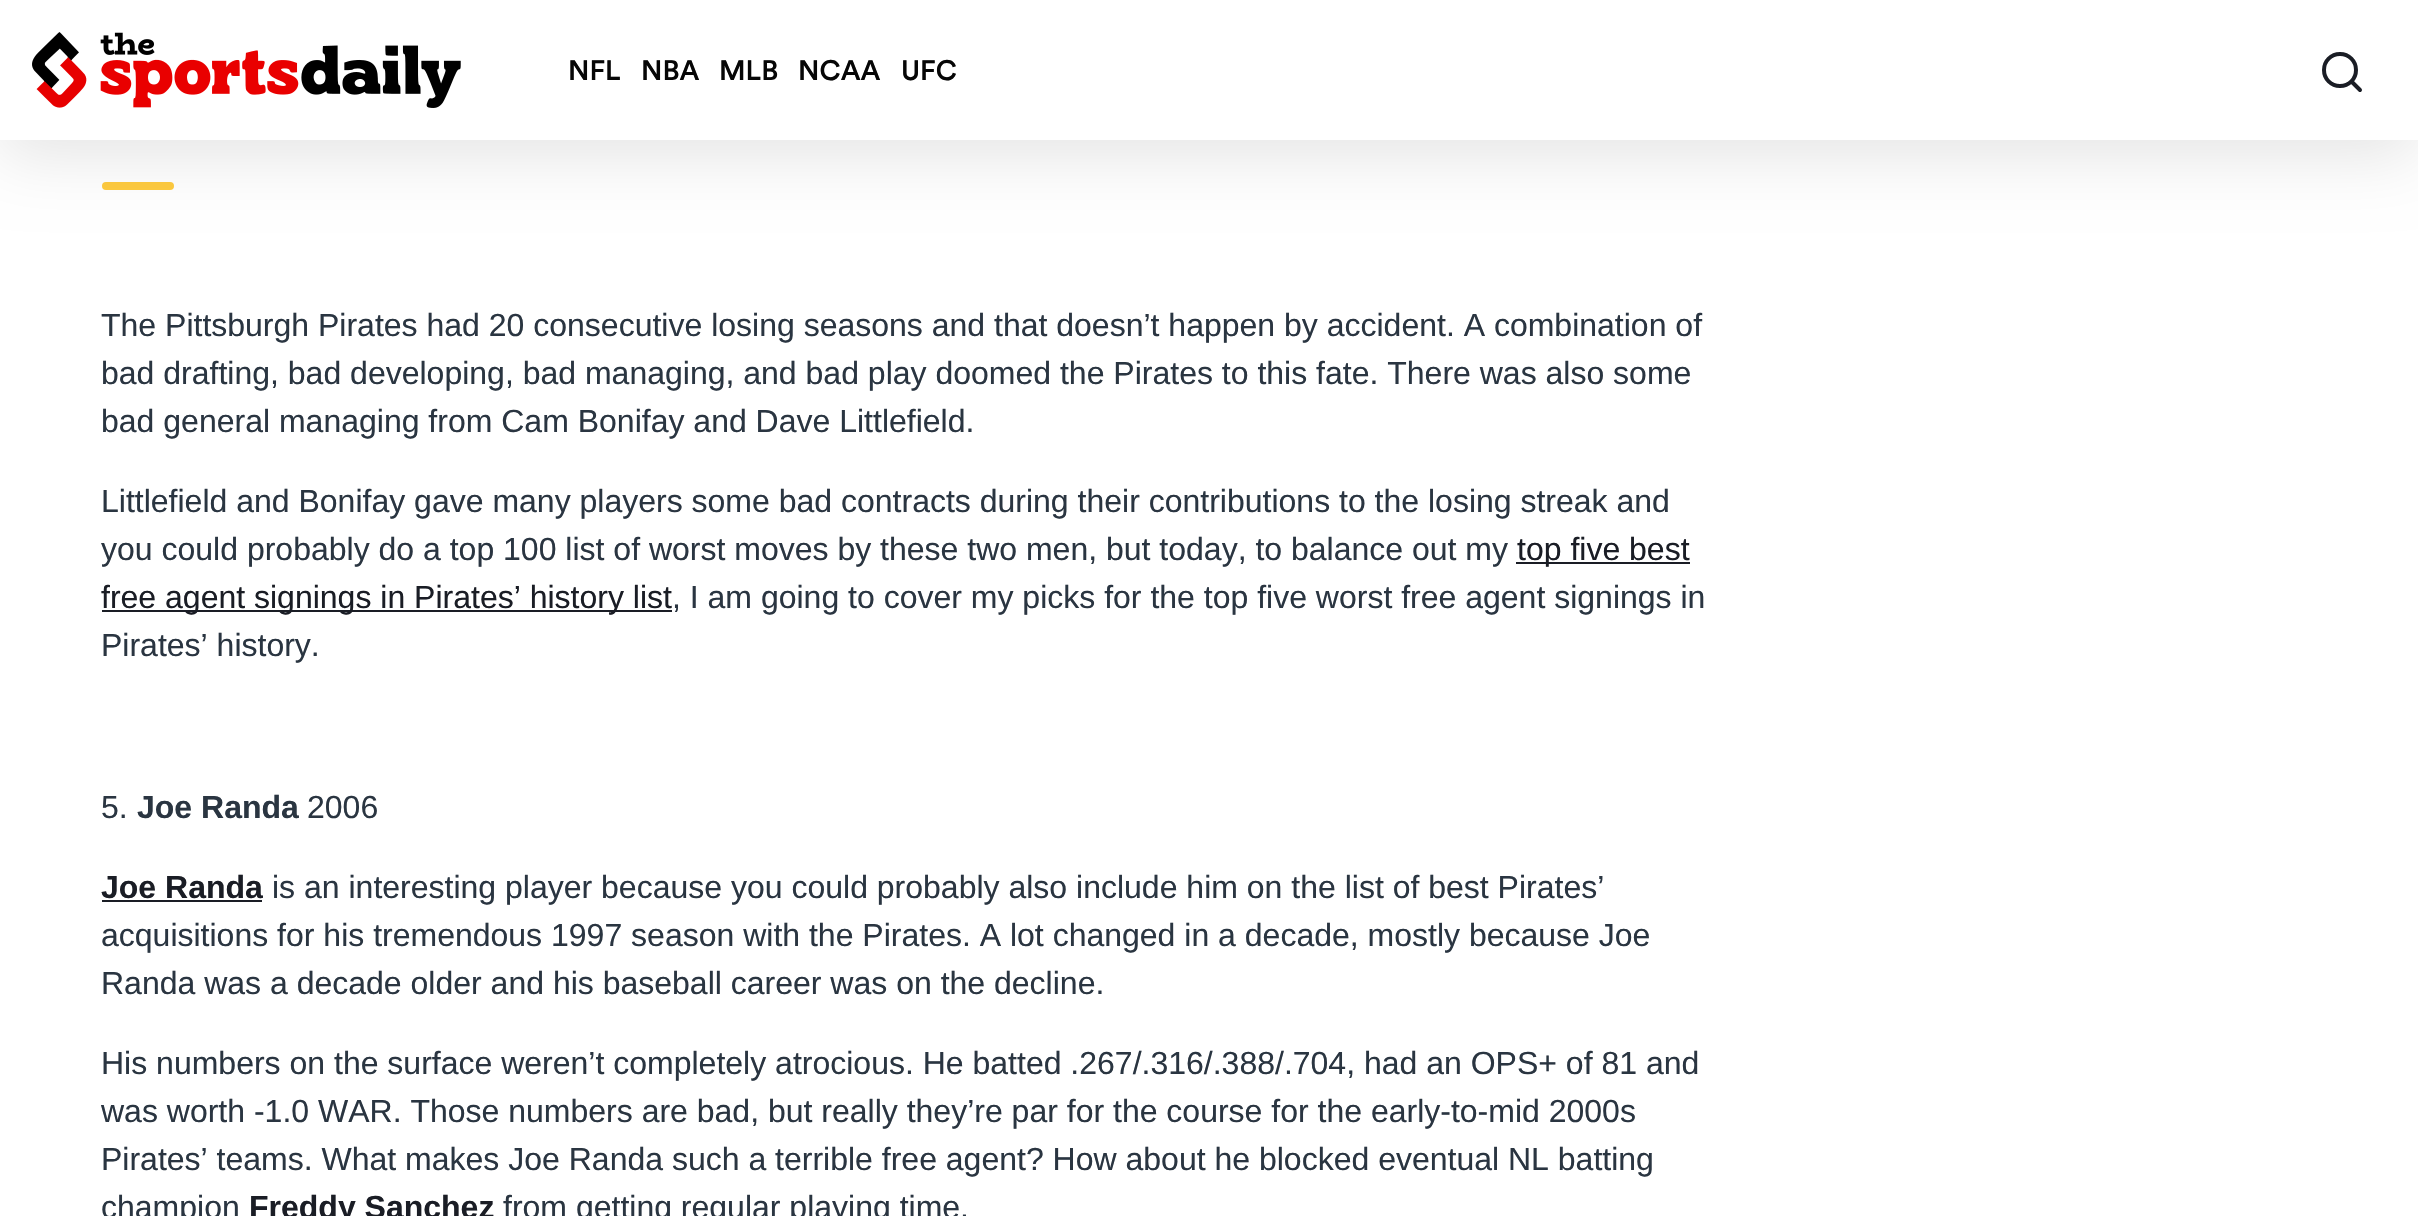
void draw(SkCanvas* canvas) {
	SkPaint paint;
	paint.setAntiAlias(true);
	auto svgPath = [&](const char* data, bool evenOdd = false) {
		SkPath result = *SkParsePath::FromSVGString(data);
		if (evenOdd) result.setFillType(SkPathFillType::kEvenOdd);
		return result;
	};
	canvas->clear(0xffffffff);
	paint.setColor(0xffffcb3f);
	canvas->drawRoundRect(SkRect::MakeXYWH(102, 182, 72, 8), 4, 4, paint);
	paint.setColor(0x1a000000);
	paint.setMaskFilter(SkMaskFilter::MakeBlur(kNormal_SkBlurStyle, 32));
	canvas->drawRect(SkRect::MakeXYWH(0, 16, 2418, 140), paint);
	paint.setMaskFilter(nullptr);
	paint.setColor(0xffffffff);
	canvas->drawRect(SkRect::MakeXYWH(0, 0, 2418, 140), paint);
	canvas->drawImageRect(SkImages::DeferredFromEncodedData(SkData::MakeFromFileName("img1.png")), SkRect::MakeXYWH(32, 32, 429, 76), SkSamplingOptions());
	SkFont f1(fontMgr->matchFamilyStyle("Circular", SkFontStyle(500, SkFontStyle::kNormal_Width, SkFontStyle::kUpright_Slant)), 28);
	f1.setSubpixel(true);
	paint.setColor(0xff060606);
	canvas->drawString("NFL", 568, 80, f1, paint);
	canvas->drawString("NBA", 641, 80, f1, paint);
	canvas->drawString("MLB", 719, 80, f1, paint);
	canvas->drawString("NCAA", 798, 80, f1, paint);
	canvas->drawString("UFC", 901, 80, f1, paint);
	paint.setStroke(true);
	paint.setStrokeWidth(4);
	paint.setStrokeCap(SkPaint::kRound_Cap);
	paint.setStrokeJoin(SkPaint::kRound_Join);
	paint.setColor(0xff1a1d25);
	canvas->drawPath(svgPath("M2340 86C2349 86 2356 79 2356 70C2356 61 2349 54 2340 54C2331 54 2324 61 2324 70C2324 79 2331 86 2340 86ZM2360 90L2351.5 81.5"), paint);
	SkFont f2(fontMgr->matchFamilyStyle("Liberation Sans", SkFontStyle::Normal()), 32);
	f2.setSubpixel(true);
	paint.setStroke(false);
	paint.setColor(0xff2a3541);
	canvas->drawString("The Pittsburgh Pirates had 20 consecutive losing seasons and that doesn’t happen by accident. A combination of", 101, 336, f2, paint);
	canvas->drawString("bad drafting, bad developing, bad managing, and bad play doomed the Pirates to this fate. There was also some", 101, 384, f2, paint);
	canvas->drawString("bad general managing from Cam Bonifay and Dave Littlefield.", 101, 432, f2, paint);
	canvas->drawString("Littlefield and Bonifay gave many players some bad contracts during their contributions to the losing streak and", 101, 512, f2, paint);
	canvas->drawString("you could probably do a top 100 list of worst moves by these two men, but today, to balance out my", 101, 560, f2, paint);
	paint.setColor(0xff1a1d25);
	canvas->drawRect(SkRect::MakeXYWH(1516, 562, 174, 2), paint);
	canvas->drawString("top five best", 1517, 560, f2, paint);
	canvas->drawRect(SkRect::MakeXYWH(102, 610, 570, 2), paint);
	canvas->drawString("free agent signings in Pirates’ history list", 101, 608, f2, paint);
	paint.setColor(0xff2a3541);
	canvas->drawString(", I am going to cover my picks for the top five worst free agent signings in", 672, 608, f2, paint);
	canvas->drawString("Pirates’ history.", 101, 656, f2, paint);
	canvas->drawString("5.", 101, 818, f2, paint);
	SkFont f3(fontMgr->matchFamilyStyle("Liberation Sans", SkFontStyle::Bold()), 32);
	f3.setSubpixel(true);
	canvas->drawString("Joe Randa", 137, 818, f3, paint);
	canvas->drawString("2006", 307, 818, f2, paint);
	paint.setColor(0xff1a1d25);
	canvas->drawString("Joe Randa", 101, 898, f3, paint);
	canvas->drawRect(SkRect::MakeXYWH(102, 900, 160, 2), paint);
	paint.setColor(0xff2a3541);
	canvas->drawString("is an interesting player because you could probably also include him on the list of best Pirates’", 272, 898, f2, paint);
	canvas->drawString("acquisitions for his tremendous 1997 season with the Pirates. A lot changed in a decade, mostly because Joe", 101, 946, f2, paint);
	canvas->drawString("Randa was a decade older and his baseball career was on the decline.", 101, 994, f2, paint);
	canvas->drawString("His numbers on the surface weren’t completely atrocious. He batted .267/.316/.388/.704, had an OPS+ of 81 and", 101, 1074, f2, paint);
	canvas->drawString("was worth -1.0 WAR. Those numbers are bad, but really they’re par for the course for the early-to-mid 2000s", 101, 1122, f2, paint);
	canvas->drawString("Pirates’ teams. What makes Joe Randa such a terrible free agent? How about he blocked eventual NL batting", 101, 1170, f2, paint);
	canvas->drawString("champion", 101, 1218, f2, paint);
	paint.setColor(0xff1a1d25);
	canvas->drawString("Freddy Sanchez", 249, 1218, f3, paint);
	paint.setColor(0xff2a3541);
	canvas->drawString("from getting regular playing time.", 503, 1218, f2, paint);
}
